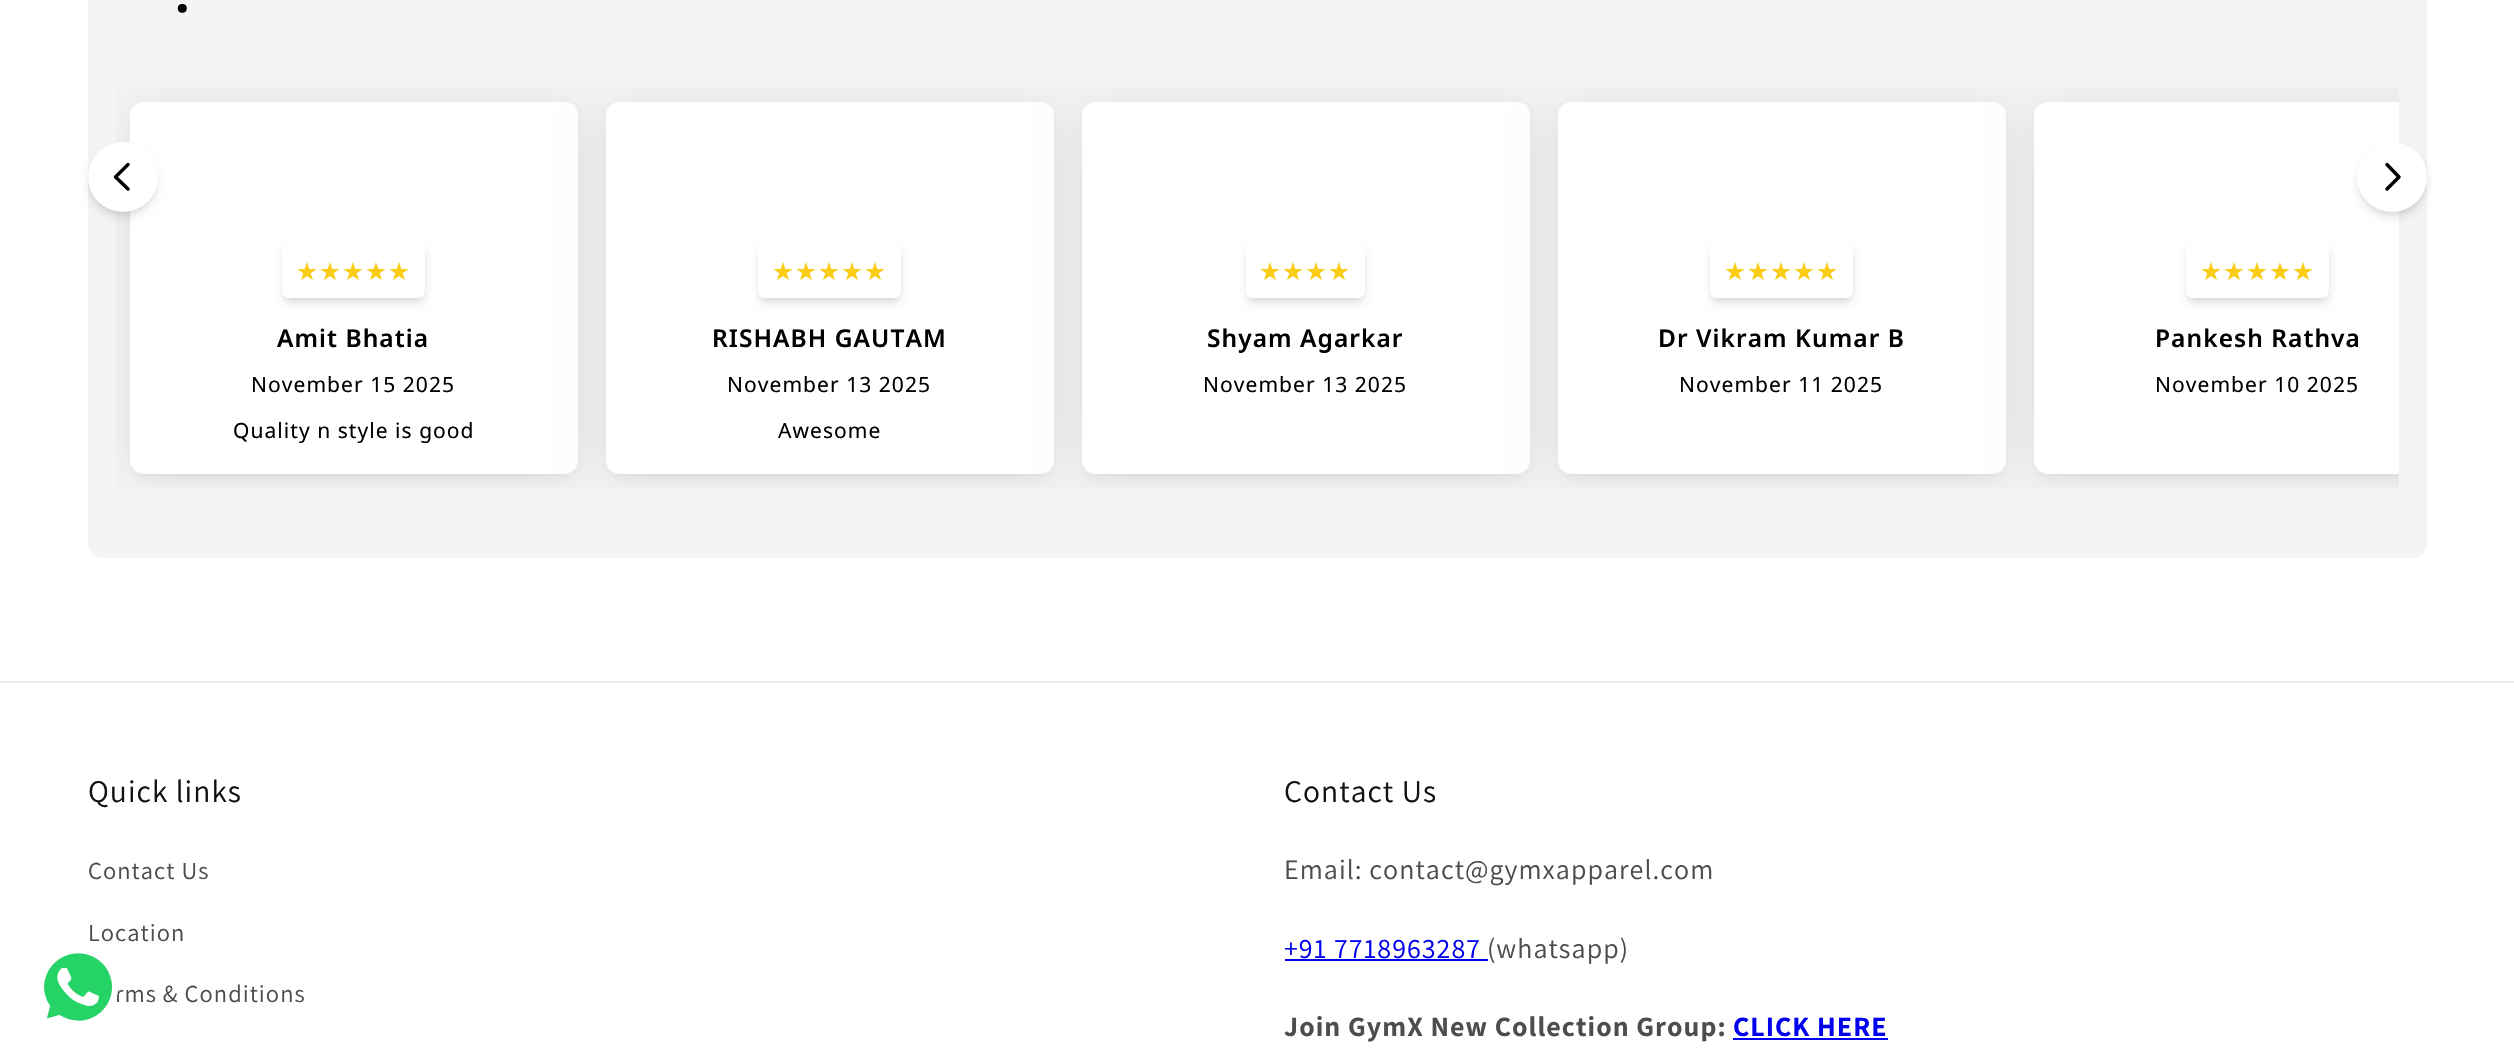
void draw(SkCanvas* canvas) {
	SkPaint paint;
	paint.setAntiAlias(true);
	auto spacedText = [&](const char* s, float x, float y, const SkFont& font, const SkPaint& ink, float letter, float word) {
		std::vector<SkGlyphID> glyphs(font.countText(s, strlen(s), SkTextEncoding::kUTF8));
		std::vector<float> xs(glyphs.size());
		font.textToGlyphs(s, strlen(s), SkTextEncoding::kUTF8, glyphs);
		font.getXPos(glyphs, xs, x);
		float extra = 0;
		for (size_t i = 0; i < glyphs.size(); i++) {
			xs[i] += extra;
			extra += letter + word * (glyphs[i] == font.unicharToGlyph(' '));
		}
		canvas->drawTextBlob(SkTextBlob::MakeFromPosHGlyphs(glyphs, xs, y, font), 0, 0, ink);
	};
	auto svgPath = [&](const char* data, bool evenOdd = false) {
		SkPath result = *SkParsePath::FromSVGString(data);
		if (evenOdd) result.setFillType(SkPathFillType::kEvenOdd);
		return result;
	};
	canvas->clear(0xffffffff);
	paint.setColor(0xfff3f4f6);
	canvas->drawRoundRect(SkRect::MakeXYWH(88, -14, 2339, 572), 14, 14, paint);
	SkFont f1(fontMgr->matchFamilyStyle("Noto Sans", SkFontStyle::Bold()), 52);
	f1.setSubpixel(true);
	paint.setColor(0xff000000);
	spacedText(".", 175, 12, f1, paint, 1.05, 0);
	paint.setColor(0x1a000000);
	paint.setMaskFilter(SkMaskFilter::MakeBlur(kNormal_SkBlurStyle, 5));
	canvas->drawRoundRect(SkRect::MakeXYWH(137, 116, 434, 358), 7, 7, paint);
	paint.setMaskFilter(nullptr);
	canvas->save();
	canvas->clipRect(SkRect::MakeXYWH(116, 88, 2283, 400));
	paint.setMaskFilter(SkMaskFilter::MakeBlur(kNormal_SkBlurStyle, 26));
	canvas->drawRoundRect(SkRect::MakeXYWH(137, 112, 434, 359), 7, 7, paint);
	paint.setMaskFilter(nullptr);
	canvas->restore();
	paint.setColor(0xffffffff);
	canvas->drawRoundRect(SkRect::MakeXYWH(130, 102, 448, 372), 14, 14, paint);
	paint.setColor(0x1a000000);
	paint.setMaskFilter(SkMaskFilter::MakeBlur(kNormal_SkBlurStyle, 3.5));
	canvas->drawRoundRect(SkRect::MakeXYWH(91, 149, 63, 63), 31.5, 31.5, paint);
	paint.setMaskFilter(nullptr);
	paint.setMaskFilter(SkMaskFilter::MakeBlur(kNormal_SkBlurStyle, 5));
	canvas->drawRoundRect(SkRect::MakeXYWH(89, 151, 67, 66), 33, 33, paint);
	paint.setMaskFilter(nullptr);
	paint.setColor(0xffffffff);
	canvas->drawCircle(123, 177, 35, paint);
	paint.setStroke(true);
	paint.setStrokeWidth(3.5);
	paint.setStrokeCap(SkPaint::kRound_Cap);
	paint.setStrokeJoin(SkPaint::kRound_Join);
	paint.setColor(0xff000000);
	canvas->drawPath(svgPath("M128 189L115.5 177L128 164.5"), paint);
	canvas->save();
	canvas->clipRect(SkRect::MakeXYWH(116, 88, 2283, 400));
	paint.setStroke(false);
	paint.setColor(0x1a000000);
	paint.setMaskFilter(SkMaskFilter::MakeBlur(kNormal_SkBlurStyle, 26));
	canvas->drawRoundRect(SkRect::MakeXYWH(613, 112, 434, 359), 7, 7, paint);
	paint.setMaskFilter(nullptr);
	canvas->restore();
	paint.setMaskFilter(SkMaskFilter::MakeBlur(kNormal_SkBlurStyle, 5));
	canvas->drawRoundRect(SkRect::MakeXYWH(1089, 116, 434, 358), 7, 7, paint);
	paint.setMaskFilter(nullptr);
	paint.setMaskFilter(SkMaskFilter::MakeBlur(kNormal_SkBlurStyle, 5));
	canvas->drawRoundRect(SkRect::MakeXYWH(613, 116, 434, 358), 7, 7, paint);
	paint.setMaskFilter(nullptr);
	paint.setColor(0xffffffff);
	canvas->drawRoundRect(SkRect::MakeXYWH(606, 102, 448, 372), 14, 14, paint);
	canvas->save();
	canvas->clipRect(SkRect::MakeXYWH(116, 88, 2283, 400));
	paint.setColor(0x1a000000);
	paint.setMaskFilter(SkMaskFilter::MakeBlur(kNormal_SkBlurStyle, 26));
	canvas->drawRoundRect(SkRect::MakeXYWH(1089, 112, 434, 359), 7, 7, paint);
	paint.setMaskFilter(nullptr);
	canvas->restore();
	paint.setColor(0xffffffff);
	canvas->drawRoundRect(SkRect::MakeXYWH(1082, 102, 448, 372), 14, 14, paint);
	canvas->save();
	canvas->clipRect(SkRect::MakeXYWH(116, 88, 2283, 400));
	paint.setColor(0x1a000000);
	paint.setMaskFilter(SkMaskFilter::MakeBlur(kNormal_SkBlurStyle, 26));
	canvas->drawRoundRect(SkRect::MakeXYWH(1565, 112, 434, 359), 7, 7, paint);
	paint.setMaskFilter(nullptr);
	paint.setMaskFilter(SkMaskFilter::MakeBlur(kNormal_SkBlurStyle, 5));
	canvas->drawRoundRect(SkRect::MakeXYWH(2041, 116, 434, 358), 7, 7, paint);
	paint.setMaskFilter(nullptr);
	canvas->restore();
	paint.setMaskFilter(SkMaskFilter::MakeBlur(kNormal_SkBlurStyle, 5));
	canvas->drawRoundRect(SkRect::MakeXYWH(1565, 116, 434, 358), 7, 7, paint);
	paint.setMaskFilter(nullptr);
	paint.setColor(0xffffffff);
	canvas->drawRoundRect(SkRect::MakeXYWH(1558, 102, 448, 372), 14, 14, paint);
	canvas->save();
	canvas->clipRect(SkRect::MakeXYWH(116, 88, 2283, 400));
	paint.setColor(0x1a000000);
	paint.setMaskFilter(SkMaskFilter::MakeBlur(kNormal_SkBlurStyle, 26));
	canvas->drawRoundRect(SkRect::MakeXYWH(2041, 112, 434, 359), 7, 7, paint);
	paint.setMaskFilter(nullptr);
	canvas->restore();
	paint.setColor(0xffffffff);
	canvas->drawPath(svgPath("M2048 102H2399V474H2048C2040.5 474 2034 467.5 2034 460V116C2034 108.5 2040.5 102 2048 102Z"), paint);
	paint.setColor(0x1a000000);
	paint.setMaskFilter(SkMaskFilter::MakeBlur(kNormal_SkBlurStyle, 3.5));
	canvas->drawRoundRect(SkRect::MakeXYWH(2361, 149, 63, 63), 31.5, 31.5, paint);
	paint.setMaskFilter(nullptr);
	paint.setMaskFilter(SkMaskFilter::MakeBlur(kNormal_SkBlurStyle, 5));
	canvas->drawRoundRect(SkRect::MakeXYWH(2359, 151, 67, 66), 33, 33, paint);
	paint.setMaskFilter(nullptr);
	paint.setColor(0xffffffff);
	canvas->drawCircle(2392, 177, 35, paint);
	paint.setStroke(true);
	paint.setColor(0xff000000);
	canvas->drawPath(svgPath("M2387 164.5L2399 177L2387 189"), paint);
	paint.setStroke(false);
	paint.setColor(0x1a000000);
	paint.setMaskFilter(SkMaskFilter::MakeBlur(kNormal_SkBlurStyle, 3.5));
	canvas->drawRoundRect(SkRect::MakeXYWH(285, 249, 137, 49), 4, 4, paint);
	paint.setMaskFilter(nullptr);
	paint.setMaskFilter(SkMaskFilter::MakeBlur(kNormal_SkBlurStyle, 5));
	canvas->drawRoundRect(SkRect::MakeXYWH(284, 250, 140, 53), 5, 5, paint);
	paint.setMaskFilter(nullptr);
	paint.setColor(0xffffffff);
	canvas->drawRoundRect(SkRect::MakeXYWH(282, 242, 143, 56), 7, 7, paint);
	SkFont f2(fontMgr->matchFamilyStyle("DejaVu Sans", SkFontStyle::Normal()), 24.5);
	f2.setSubpixel(true);
	paint.setColor(0xfffacc15);
	spacedText("★★★★★", 296, 280, f2, paint, 1.05, 0);
	SkFont f3(fontMgr->matchFamilyStyle("Noto Sans", SkFontStyle(600, SkFontStyle::kNormal_Width, SkFontStyle::kUpright_Slant)), 24.5);
	f3.setSubpixel(true);
	paint.setColor(0xff000000);
	spacedText("Amit Bhatia", 277, 347, f3, paint, 1.05, 0);
	SkFont f4(fontMgr->matchFamilyStyle("Noto Sans", SkFontStyle::Normal()), 21);
	f4.setSubpixel(true);
	spacedText("November 15 2025", 251, 392, f4, paint, 1.05, 0);
	spacedText("Quality n style is good", 233, 438, f4, paint, 1.05, 0);
	paint.setColor(0x1a000000);
	paint.setMaskFilter(SkMaskFilter::MakeBlur(kNormal_SkBlurStyle, 3.5));
	canvas->drawRoundRect(SkRect::MakeXYWH(761, 249, 137, 49), 4, 4, paint);
	paint.setMaskFilter(nullptr);
	paint.setMaskFilter(SkMaskFilter::MakeBlur(kNormal_SkBlurStyle, 5));
	canvas->drawRoundRect(SkRect::MakeXYWH(760, 250, 140, 53), 5, 5, paint);
	paint.setMaskFilter(nullptr);
	paint.setColor(0xffffffff);
	canvas->drawRoundRect(SkRect::MakeXYWH(758, 242, 143, 56), 7, 7, paint);
	paint.setColor(0xfffacc15);
	spacedText("★★★★★", 772, 280, f2, paint, 1.05, 0);
	paint.setColor(0xff000000);
	spacedText("RISHABH GAUTAM", 712, 347, f3, paint, 1.05, 0);
	spacedText("November 13 2025", 727, 392, f4, paint, 1.05, 0);
	spacedText("Awesome", 778, 438, f4, paint, 1.05, 0);
	paint.setColor(0x1a000000);
	paint.setMaskFilter(SkMaskFilter::MakeBlur(kNormal_SkBlurStyle, 3.5));
	canvas->drawRoundRect(SkRect::MakeXYWH(1250, 249, 112, 49), 4, 4, paint);
	paint.setMaskFilter(nullptr);
	paint.setMaskFilter(SkMaskFilter::MakeBlur(kNormal_SkBlurStyle, 5));
	canvas->drawRoundRect(SkRect::MakeXYWH(1248, 250, 115, 53), 5, 5, paint);
	paint.setMaskFilter(nullptr);
	paint.setColor(0xffffffff);
	canvas->drawRoundRect(SkRect::MakeXYWH(1246, 242, 119, 56), 7, 7, paint);
	paint.setColor(0xfffacc15);
	spacedText("★★★★", 1259, 280, f2, paint, 1.05, 0);
	paint.setColor(0xff000000);
	spacedText("Shyam Agarkar", 1207, 347, f3, paint, 1.05, 0);
	spacedText("November 13 2025", 1203, 392, f4, paint, 1.05, 0);
	paint.setColor(0x1a000000);
	paint.setMaskFilter(SkMaskFilter::MakeBlur(kNormal_SkBlurStyle, 3.5));
	canvas->drawRoundRect(SkRect::MakeXYWH(1713, 249, 137, 49), 4, 4, paint);
	paint.setMaskFilter(nullptr);
	paint.setMaskFilter(SkMaskFilter::MakeBlur(kNormal_SkBlurStyle, 5));
	canvas->drawRoundRect(SkRect::MakeXYWH(1712, 250, 140, 53), 5, 5, paint);
	paint.setMaskFilter(nullptr);
	paint.setColor(0xffffffff);
	canvas->drawRoundRect(SkRect::MakeXYWH(1710, 242, 143, 56), 7, 7, paint);
	paint.setColor(0xfffacc15);
	spacedText("★★★★★", 1724, 280, f2, paint, 1.05, 0);
	paint.setColor(0xff000000);
	spacedText("Dr Vikram Kumar B", 1658, 347, f3, paint, 1.05, 0);
	spacedText("November 11 2025", 1679, 392, f4, paint, 1.05, 0);
	paint.setColor(0x1a000000);
	paint.setMaskFilter(SkMaskFilter::MakeBlur(kNormal_SkBlurStyle, 3.5));
	canvas->drawRoundRect(SkRect::MakeXYWH(2189, 249, 137, 49), 4, 4, paint);
	paint.setMaskFilter(nullptr);
	paint.setMaskFilter(SkMaskFilter::MakeBlur(kNormal_SkBlurStyle, 5));
	canvas->drawRoundRect(SkRect::MakeXYWH(2188, 250, 140, 53), 5, 5, paint);
	paint.setMaskFilter(nullptr);
	paint.setColor(0xffffffff);
	canvas->drawRoundRect(SkRect::MakeXYWH(2186, 242, 143, 56), 7, 7, paint);
	paint.setColor(0xfffacc15);
	spacedText("★★★★★", 2200, 280, f2, paint, 1.05, 0);
	paint.setColor(0xff000000);
	spacedText("Pankesh Rathva", 2155, 347, f3, paint, 1.05, 0);
	spacedText("November 10 2025", 2155, 392, f4, paint, 1.05, 0);
	SkFont f5(fontMgr->matchFamilyStyle("Assistant", SkFontStyle::Normal()), 24.5);
	f5.setSubpixel(true);
	paint.setColor(0xff4d4d4d);
	spacedText("rms & Conditions", 115, 1002, f5, paint, 1.05, 0);
	canvas->drawImageRect(SkImages::DeferredFromEncodedData(SkData::MakeFromFileName("img1.png")), SkRect::MakeXYWH(44, 953, 74, 68), SkSamplingOptions());
	paint.setColor(0xffececec);
	canvas->drawRect(SkRect::MakeXYWH(0, 681, 2514, 2), paint);
	SkFont f6(fontMgr->matchFamilyStyle("Assistant", SkFontStyle::Normal()), 31.5);
	f6.setSubpixel(true);
	paint.setColor(0xff121212);
	spacedText("Quick links", 88, 802, f6, paint, 1.05, 0);
	paint.setColor(0xff4d4d4d);
	spacedText("Contact Us", 88, 879, f5, paint, 1.05, 0);
	spacedText("Location", 88, 941, f5, paint, 1.05, 0);
	paint.setColor(0xff121212);
	spacedText("Contact Us", 1284, 802, f6, paint, 1.05, 0);
	SkFont f7(fontMgr->matchFamilyStyle("Assistant", SkFontStyle::Normal()), 28);
	f7.setSubpixel(true);
	paint.setColor(0xff4d4d4d);
	spacedText("Email: contact@gymxapparel.com", 1284, 879, f7, paint, 1.05, 0);
	paint.setColor(0xff0000ee);
	spacedText("+91 7718963287", 1284, 958, f7, paint, 1.05, 0);
	canvas->drawRect(SkRect::MakeXYWH(1285, 959, 203, 2), paint);
	paint.setColor(0xff4d4d4d);
	spacedText("(whatsapp)", 1487, 958, f7, paint, 1.05, 0);
	SkFont f8(fontMgr->matchFamilyStyle("Assistant", SkFontStyle::Bold()), 28);
	f8.setSubpixel(true);
	spacedText("Join GymX New Collection Group:", 1284, 1036, f8, paint, 1.05, 0);
	paint.setColor(0xff0000ee);
	spacedText("CLICK HERE", 1733, 1036, f8, paint, 1.05, 0);
	canvas->drawRect(SkRect::MakeXYWH(1733, 1038, 155, 2), paint);
}
